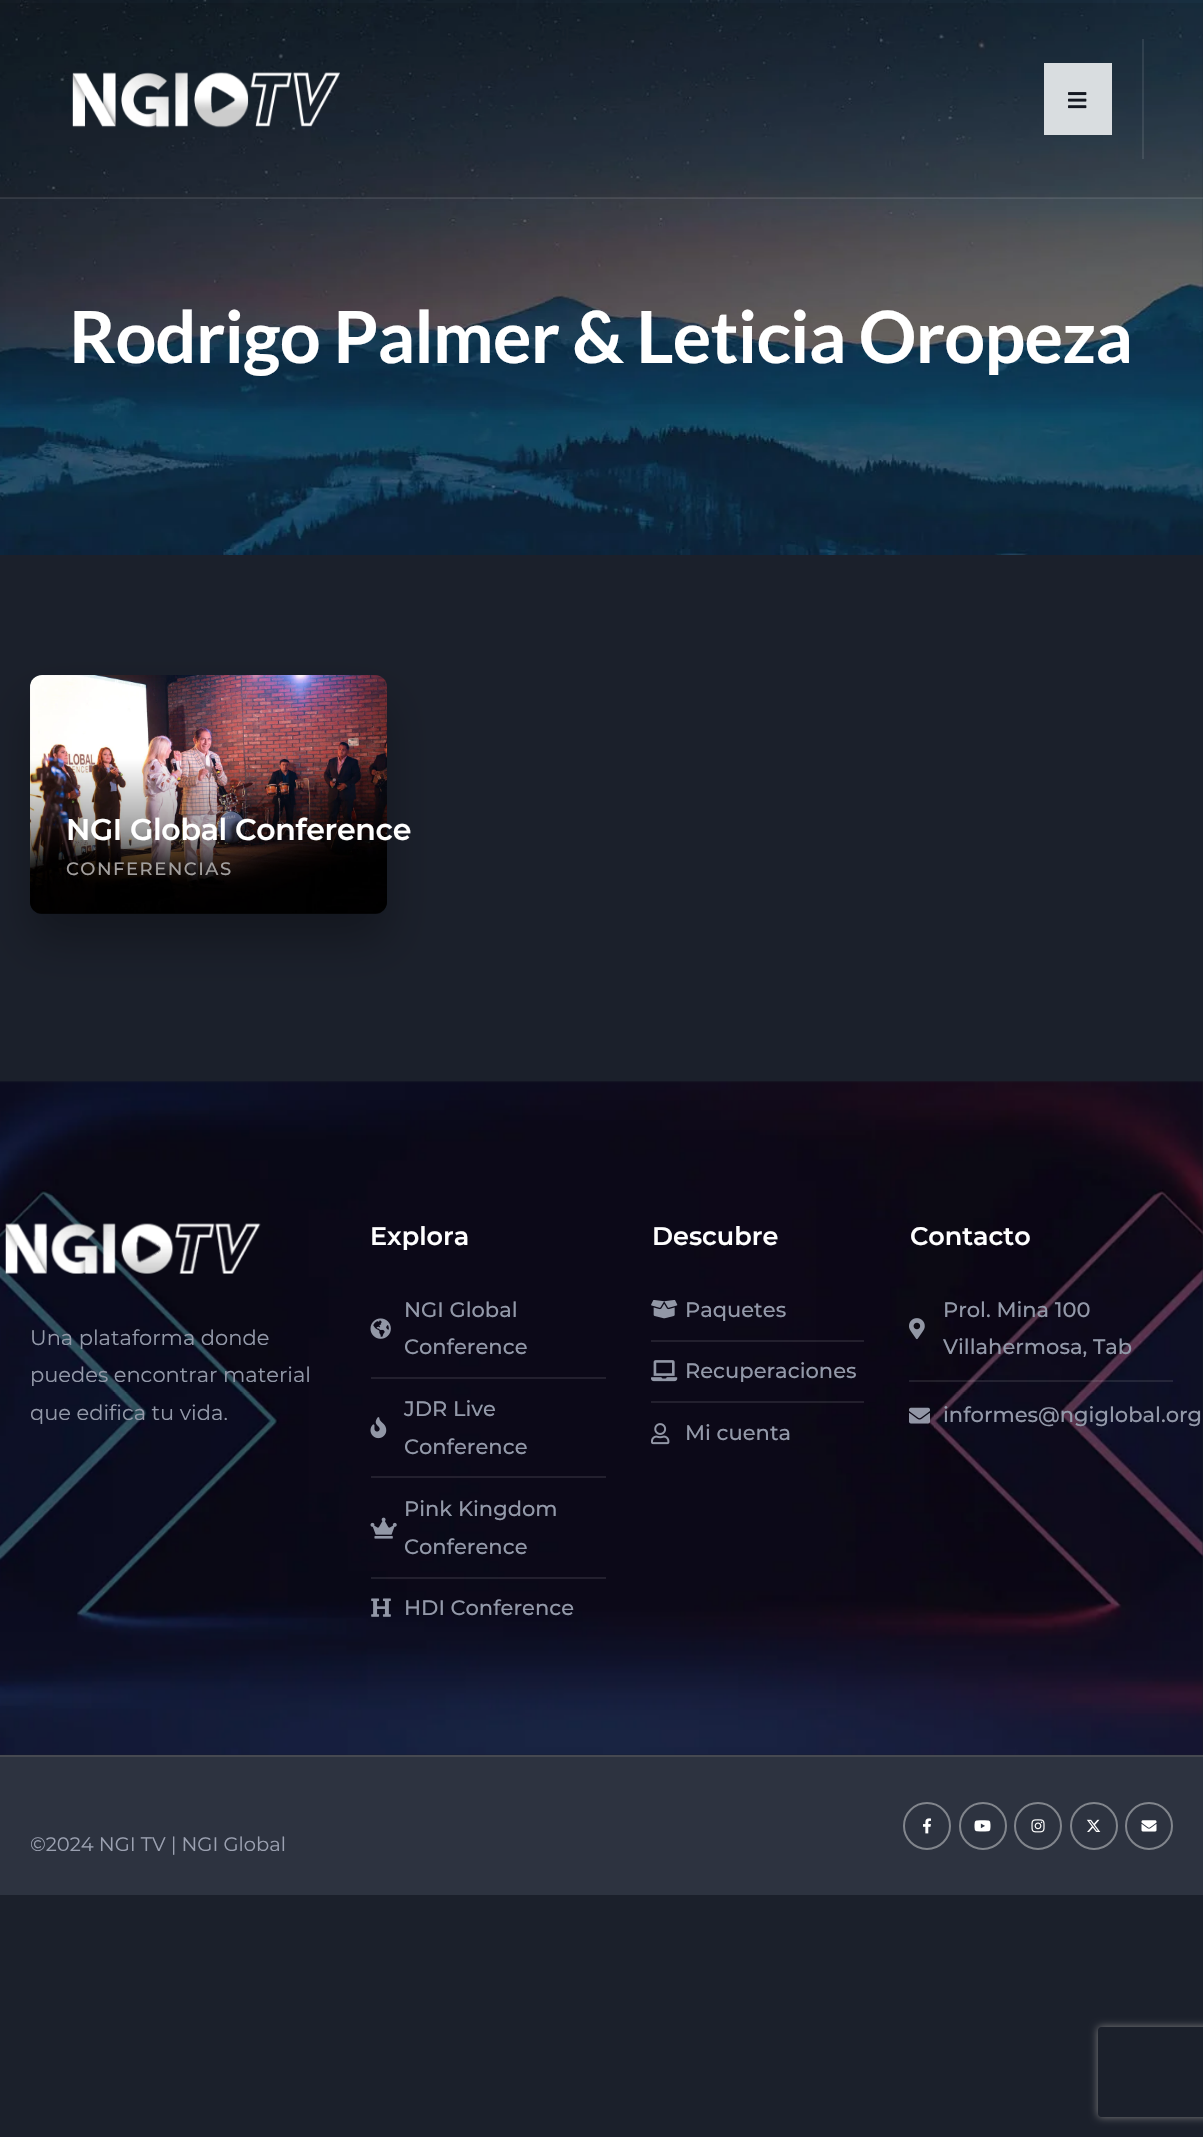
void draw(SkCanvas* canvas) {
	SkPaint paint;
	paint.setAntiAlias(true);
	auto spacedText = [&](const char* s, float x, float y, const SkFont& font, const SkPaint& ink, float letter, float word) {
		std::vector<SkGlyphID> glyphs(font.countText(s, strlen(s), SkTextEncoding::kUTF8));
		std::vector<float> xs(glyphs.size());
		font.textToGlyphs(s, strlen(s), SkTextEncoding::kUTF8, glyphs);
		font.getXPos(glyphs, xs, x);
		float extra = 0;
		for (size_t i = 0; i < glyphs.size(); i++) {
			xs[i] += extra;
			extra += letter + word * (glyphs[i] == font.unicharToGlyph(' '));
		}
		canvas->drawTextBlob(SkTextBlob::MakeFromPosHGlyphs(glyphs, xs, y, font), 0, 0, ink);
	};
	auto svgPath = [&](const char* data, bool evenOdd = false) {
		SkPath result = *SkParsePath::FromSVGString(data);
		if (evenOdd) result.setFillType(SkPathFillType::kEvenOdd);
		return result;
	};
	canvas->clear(0xff1b202b);
	canvas->drawImageRect(SkImages::DeferredFromEncodedData(SkData::MakeFromFileName("img3.png")), SkRect::MakeXYWH(0, 0, 1203, 555), SkSamplingOptions());
	paint.setColor(0x1a000000);
	canvas->drawRect(SkRect::MakeXYWH(0, 3, 1203, 195), paint);
	paint.setColor(0x17ffffff);
	canvas->drawRect(SkRect::MakeXYWH(0, 197, 1203, 2), paint);
	canvas->drawImageRect(SkImages::DeferredFromEncodedData(SkData::MakeFromFileName("img1.png")), SkRect::MakeXYWH(72, 72, 268, 56), SkSamplingOptions());
	canvas->drawRect(SkRect::MakeXYWH(1142, 39, 2, 120), paint);
	paint.setColor(0xffd9dde0);
	canvas->drawRect(SkRect::MakeXYWH(1044, 63, 68, 72), paint);
	canvas->drawImageRect(SkImages::DeferredFromEncodedData(SkData::MakeFromFileName("img2.png")), SkRect::MakeXYWH(1068, 92, 19, 17), SkSamplingOptions());
	SkFont f1(fontMgr->matchFamilyStyle("Lato", SkFontStyle::Bold()), 72);
	f1.setSubpixel(true);
	paint.setColor(0xffffffff);
	spacedText("Rodrigo Palmer & Leticia Oropeza", 69, 363, f1, paint, -0.75, 0);
	paint.setColor(0x47000000);
	paint.setMaskFilter(SkMaskFilter::MakeBlur(kNormal_SkBlurStyle, 22.5));
	canvas->drawRoundRect(SkRect::MakeXYWH(30, 702, 357, 239), 12, 12, paint);
	paint.setMaskFilter(nullptr);
	canvas->drawImageRect(SkImages::DeferredFromEncodedData(SkData::MakeFromFileName("img4.png")), SkRect::MakeXYWH(30, 675, 357, 239), SkSamplingOptions());
	{
		const SkColor colors[] = {0x00000000, 0xcc000000};
		const float stops[] = {0.35, 1};
		const SkPoint ends[] = {{209, 675}, {209, 914}};
		paint.setShader(SkGradientShader::MakeLinear(ends, colors, stops, 2, SkTileMode::kClamp));
		paint.setAlpha(255);
	}
	canvas->drawRoundRect(SkRect::MakeXYWH(30, 675, 357, 239), 12, 12, paint);
	SkFont f2(fontMgr->matchFamilyStyle("Montserrat", SkFontStyle(600, SkFontStyle::kNormal_Width, SkFontStyle::kUpright_Slant)), 30);
	f2.setSubpixel(true);
	paint.setShader(nullptr);
	paint.setColor(0xffffffff);
	spacedText("NGI Global Conference", 66, 840, f2, paint, -0.3, 0);
	SkFont f3(fontMgr->matchFamilyStyle("Montserrat", SkFontStyle(500, SkFontStyle::kNormal_Width, SkFontStyle::kUpright_Slant)), 18);
	f3.setSubpixel(true);
	paint.setColor(0xffa3a09f);
	spacedText("CONFERENCIAS", 66, 875, f3, paint, 1.5, 0);
	paint.setColor(0xff181c26);
	canvas->drawRect(SkRect::MakeXYWH(0, 1082, 1203, 673), paint);
	canvas->drawImageRect(SkImages::DeferredFromEncodedData(SkData::MakeFromFileName("img5.png")), SkRect::MakeXYWH(0, 1081, 1203, 674), SkSamplingOptions());
	canvas->drawImageRect(SkImages::DeferredFromEncodedData(SkData::MakeFromFileName("img6.png")), SkRect::MakeXYWH(5, 1223, 256, 51), SkSamplingOptions());
	SkFont f4(fontMgr->matchFamilyStyle("Montserrat", SkFontStyle::Normal()), 21);
	f4.setSubpixel(true);
	paint.setColor(0xff9399a9);
	canvas->drawString("Una plataforma donde", 30, 1345, f4, paint);
	canvas->drawString("puedes encontrar material", 30, 1382, f4, paint);
	canvas->drawString("que edifica tu vida.", 30, 1420, f4, paint);
	SkFont f5(fontMgr->matchFamilyStyle("Montserrat", SkFontStyle(600, SkFontStyle::kNormal_Width, SkFontStyle::kUpright_Slant)), 25.5);
	f5.setSubpixel(true);
	paint.setColor(0xffffffff);
	canvas->drawString("Explora", 370, 1245, f5, paint);
	canvas->drawImageRect(SkImages::DeferredFromEncodedData(SkData::MakeFromFileName("img7.png")), SkRect::MakeXYWH(370, 1318, 21, 21), SkSamplingOptions());
	SkFont f6(fontMgr->matchFamilyStyle("Montserrat", SkFontStyle(500, SkFontStyle::kNormal_Width, SkFontStyle::kUpright_Slant)), 21);
	f6.setSubpixel(true);
	paint.setColor(0xff9399a9);
	canvas->drawString("NGI Global", 404, 1317, f6, paint);
	canvas->drawString("Conference", 404, 1354, f6, paint);
	paint.setColor(0xff23202e);
	canvas->drawRect(SkRect::MakeXYWH(371, 1377, 235, 2), paint);
	canvas->drawImageRect(SkImages::DeferredFromEncodedData(SkData::MakeFromFileName("img8.png")), SkRect::MakeXYWH(370, 1417, 17, 22), SkSamplingOptions());
	paint.setColor(0xff9399a9);
	canvas->drawString("JDR Live", 404, 1416, f6, paint);
	canvas->drawString("Conference", 404, 1454, f6, paint);
	paint.setColor(0xff23202e);
	canvas->drawRect(SkRect::MakeXYWH(371, 1476, 235, 2), paint);
	canvas->drawImageRect(SkImages::DeferredFromEncodedData(SkData::MakeFromFileName("img9.png")), SkRect::MakeXYWH(370, 1517, 27, 22), SkSamplingOptions());
	paint.setColor(0xff9399a9);
	canvas->drawString("Pink Kingdom", 404, 1516, f6, paint);
	canvas->drawString("Conference", 404, 1554, f6, paint);
	paint.setColor(0x1cdddddd);
	canvas->drawRect(SkRect::MakeXYWH(371, 1577, 235, 2), paint);
	canvas->drawImageRect(SkImages::DeferredFromEncodedData(SkData::MakeFromFileName("img10.png")), SkRect::MakeXYWH(371, 1598, 20, 19), SkSamplingOptions());
	paint.setColor(0xff9399a9);
	canvas->drawString("HDI Conference", 404, 1615, f6, paint);
	paint.setColor(0xffffffff);
	canvas->drawString("Descubre", 652, 1245, f5, paint);
	canvas->drawImageRect(SkImages::DeferredFromEncodedData(SkData::MakeFromFileName("img11.png")), SkRect::MakeXYWH(651, 1300, 27, 19), SkSamplingOptions());
	paint.setColor(0xff9399a9);
	canvas->drawString("Paquetes", 685, 1317, f6, paint);
	paint.setColor(0x1cdddddd);
	canvas->drawRect(SkRect::MakeXYWH(651, 1340, 213, 2), paint);
	canvas->drawImageRect(SkImages::DeferredFromEncodedData(SkData::MakeFromFileName("img12.png")), SkRect::MakeXYWH(651, 1360, 27, 22), SkSamplingOptions());
	paint.setColor(0xff9399a9);
	canvas->drawString("Recuperaciones", 685, 1378, f6, paint);
	paint.setColor(0x1cdddddd);
	canvas->drawRect(SkRect::MakeXYWH(651, 1401, 213, 2), paint);
	canvas->drawImageRect(SkImages::DeferredFromEncodedData(SkData::MakeFromFileName("img13.png")), SkRect::MakeXYWH(651, 1423, 19, 22), SkSamplingOptions());
	paint.setColor(0xff9399a9);
	canvas->drawString("Mi cuenta", 685, 1440, f6, paint);
	paint.setColor(0xffffffff);
	canvas->drawString("Contacto", 910, 1245, f5, paint);
	canvas->drawImageRect(SkImages::DeferredFromEncodedData(SkData::MakeFromFileName("img14.png")), SkRect::MakeXYWH(909, 1318, 16, 22), SkSamplingOptions());
	paint.setColor(0xff9399a9);
	canvas->drawString("Prol. Mina 100", 943, 1317, f6, paint);
	canvas->drawString("Villahermosa, Tab", 943, 1354, f6, paint);
	paint.setColor(0x1cdddddd);
	canvas->drawRect(SkRect::MakeXYWH(909, 1380, 264, 2), paint);
	canvas->drawImageRect(SkImages::DeferredFromEncodedData(SkData::MakeFromFileName("img15.png")), SkRect::MakeXYWH(909, 1407, 21, 17), SkSamplingOptions());
	paint.setColor(0xff9399a9);
	canvas->drawString("informes@ngiglobal.org", 943, 1422, f6, paint);
	paint.setColor(0xff2d3340);
	canvas->drawRect(SkRect::MakeXYWH(0, 1757, 1203, 138), paint);
	paint.setColor(0xff464951);
	canvas->drawRect(SkRect::MakeXYWH(0, 1755, 1203, 2), paint);
	SkFont f7(fontMgr->matchFamilyStyle("Montserrat", SkFontStyle::Normal()), 19.5);
	f7.setSubpixel(true);
	paint.setColor(0xff9ba1b1);
	canvas->drawString("©2024 NGI TV | NGI Global", 30, 1851, f7, paint);
	paint.setStroke(true);
	paint.setStrokeWidth(2);
	paint.setColor(0xff81858c);
	canvas->drawCircle(927, 1826, 23, paint);
	canvas->drawImageRect(SkImages::DeferredFromEncodedData(SkData::MakeFromFileName("img16.png")), SkRect::MakeXYWH(923, 1818, 8, 16), SkSamplingOptions());
	canvas->drawCircle(983, 1826, 23, paint);
	canvas->drawImageRect(SkImages::DeferredFromEncodedData(SkData::MakeFromFileName("img17.png")), SkRect::MakeXYWH(974, 1820, 17, 12), SkSamplingOptions());
	canvas->drawCircle(1038, 1826, 23, paint);
	canvas->drawImageRect(SkImages::DeferredFromEncodedData(SkData::MakeFromFileName("img18.png")), SkRect::MakeXYWH(1031, 1819, 14, 14), SkSamplingOptions());
	canvas->drawCircle(1094, 1826, 23, paint);
	canvas->drawImageRect(SkImages::DeferredFromEncodedData(SkData::MakeFromFileName("img19.png")), SkRect::MakeXYWH(1086, 1819, 15, 13), SkSamplingOptions());
	canvas->drawCircle(1149, 1826, 23, paint);
	canvas->drawImageRect(SkImages::DeferredFromEncodedData(SkData::MakeFromFileName("img20.png")), SkRect::MakeXYWH(1141, 1820, 16, 12), SkSamplingOptions());
	canvas->save();
	canvas->clipPath(svgPath("M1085 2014H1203V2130H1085ZM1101 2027H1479C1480.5 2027 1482 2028.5 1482 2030V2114C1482 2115.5 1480.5 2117 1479 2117H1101C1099.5 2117 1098 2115.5 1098 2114V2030C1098 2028.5 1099.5 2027 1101 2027Z", true), true);
	paint.setStroke(false);
	paint.setColor(0xff808080);
	paint.setMaskFilter(SkMaskFilter::MakeBlur(kNormal_SkBlurStyle, 4));
	canvas->drawRoundRect(SkRect::MakeXYWH(1098, 2027, 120, 90), 3, 3, paint);
	paint.setMaskFilter(nullptr);
	canvas->restore();
}
